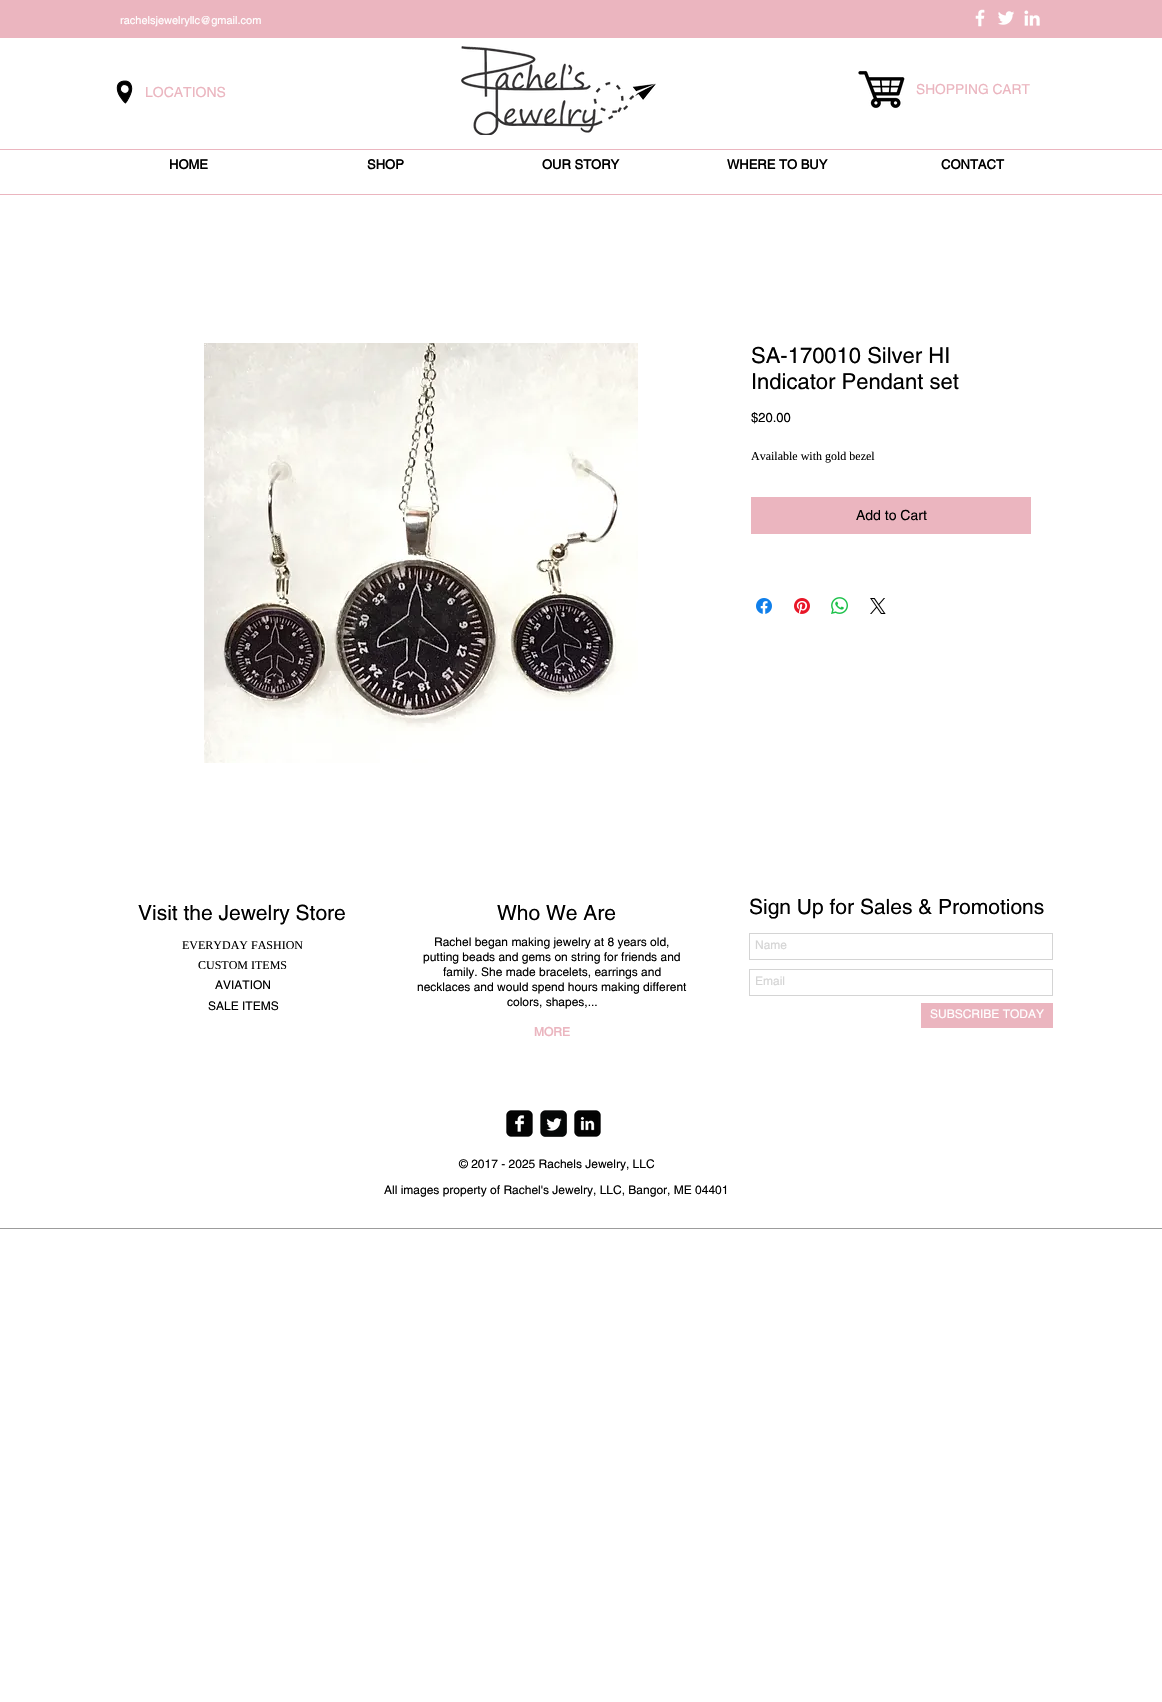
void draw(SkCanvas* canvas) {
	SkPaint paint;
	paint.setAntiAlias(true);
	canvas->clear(0xffffffff);
	paint.setColor(0xffebb5bf);
	canvas->drawRect(SkRect::MakeXYWH(0, 0, 1162, 38), paint);
	SkFont f1(fontMgr->matchFamilyStyle("helvetica", SkFontStyle::Normal()), 11);
	f1.setSubpixel(true);
	paint.setColor(0xffffffff);
	canvas->drawString("rachelsjewelryllc@gmail.com", 120, 24, f1, paint);
	canvas->drawImageRect(SkImages::DeferredFromEncodedData(SkData::MakeFromFileName("img1.png")), SkRect::MakeXYWH(975, 9, 10, 18), SkSamplingOptions());
	canvas->drawImageRect(SkImages::DeferredFromEncodedData(SkData::MakeFromFileName("img2.png")), SkRect::MakeXYWH(998, 11, 16, 14), SkSamplingOptions());
	canvas->drawImageRect(SkImages::DeferredFromEncodedData(SkData::MakeFromFileName("img3.png")), SkRect::MakeXYWH(1024, 10, 16, 16), SkSamplingOptions());
	canvas->drawImageRect(SkImages::DeferredFromEncodedData(SkData::MakeFromFileName("img4.png")), SkRect::MakeXYWH(116, 80, 17, 24), SkSamplingOptions());
	SkFont f2(fontMgr->matchFamilyStyle("helvetica", SkFontStyle::Normal()), 14);
	f2.setSubpixel(true);
	paint.setColor(0xffebb5bf);
	canvas->drawString("LOCATIONS", 145, 97, f2, paint);
	canvas->drawImageRect(SkImages::DeferredFromEncodedData(SkData::MakeFromFileName("img5.png")), SkRect::MakeXYWH(461, 46, 195, 89), SkSamplingOptions());
	canvas->drawImageRect(SkImages::DeferredFromEncodedData(SkData::MakeFromFileName("img6.png")), SkRect::MakeXYWH(858, 70, 47, 38), SkSamplingOptions());
	SkFont f3(fontMgr->matchFamilyStyle("helvetica", SkFontStyle::Normal()), 13.75);
	f3.setSubpixel(true);
	canvas->drawString("SHOPPING CART", 916, 94, f3, paint);
	canvas->drawRect(SkRect::MakeXYWH(0, 149, 1162, 1), paint);
	SkFont f4(fontMgr->matchFamilyStyle("helvetica", SkFontStyle::Bold()), 13);
	f4.setSubpixel(true);
	paint.setColor(0xff000000);
	canvas->drawString("HOME", 169, 169, f4, paint);
	canvas->drawString("SHOP", 367, 169, f4, paint);
	canvas->drawString("OUR STORY", 542, 169, f4, paint);
	canvas->drawString("WHERE TO BUY", 727, 169, f4, paint);
	canvas->drawString("CONTACT", 941, 169, f4, paint);
	paint.setColor(0xffebb5bf);
	canvas->drawRect(SkRect::MakeXYWH(0, 194, 1162, 1), paint);
	canvas->drawImageRect(SkImages::DeferredFromEncodedData(SkData::MakeFromFileName("img7.png")), SkRect::MakeXYWH(204, 343, 434, 420), SkSamplingOptions());
	SkFont f5(fontMgr->matchFamilyStyle("helvetica", SkFontStyle::Normal()), 22);
	f5.setSubpixel(true);
	paint.setColor(0xff000000);
	canvas->drawString("SA-170010 Silver HI", 751, 363, f5, paint);
	canvas->drawString("Indicator Pendant set", 751, 389, f5, paint);
	SkFont f6(fontMgr->matchFamilyStyle("helvetica", SkFontStyle::Normal()), 13);
	f6.setSubpixel(true);
	canvas->drawString("$20.00", 751, 422, f6, paint);
	SkFont f7(fontMgr->matchFamilyStyle("Liberation Serif", SkFontStyle::Normal()), 12);
	f7.setSubpixel(true);
	canvas->drawString("Available with gold bezel", 751, 460, f7, paint);
	paint.setColor(0xffebb5bf);
	canvas->drawRect(SkRect::MakeXYWH(751, 497, 280, 37), paint);
	paint.setColor(0xff000000);
	canvas->drawString("Add to Cart", 856, 520, f2, paint);
	canvas->drawImageRect(SkImages::DeferredFromEncodedData(SkData::MakeFromFileName("img8.png")), SkRect::MakeXYWH(756, 598, 16, 16), SkSamplingOptions());
	canvas->drawImageRect(SkImages::DeferredFromEncodedData(SkData::MakeFromFileName("img9.png")), SkRect::MakeXYWH(794, 598, 16, 16), SkSamplingOptions());
	canvas->drawImageRect(SkImages::DeferredFromEncodedData(SkData::MakeFromFileName("img10.png")), SkRect::MakeXYWH(831, 597, 17, 17), SkSamplingOptions());
	canvas->drawImageRect(SkImages::DeferredFromEncodedData(SkData::MakeFromFileName("img11.png")), SkRect::MakeXYWH(870, 598, 16, 16), SkSamplingOptions());
	SkFont f8(fontMgr->matchFamilyStyle("helvetica", SkFontStyle::Normal()), 21);
	f8.setSubpixel(true);
	canvas->drawString("Visit the Jewelry Store", 138, 920, f8, paint);
	canvas->drawString("Who We Are", 497, 920, f8, paint);
	canvas->drawString("Sign Up for Sales & Promotions", 749, 914, f8, paint);
	paint.setStroke(true);
	paint.setStrokeWidth(1);
	paint.setColor(0xffd4d4d4);
	canvas->drawRect(SkRect::MakeXYWH(749.5, 933.5, 303, 26), paint);
	SkFont f9(fontMgr->matchFamilyStyle("helvetica", SkFontStyle::Normal()), 12);
	f9.setSubpixel(true);
	paint.setStroke(false);
	canvas->drawString("Name", 755, 949, f9, paint);
	paint.setStroke(true);
	canvas->drawRect(SkRect::MakeXYWH(749.5, 969.5, 303, 26), paint);
	paint.setStroke(false);
	canvas->drawString("Email", 755, 985, f9, paint);
	paint.setColor(0xffebb5bf);
	canvas->drawRect(SkRect::MakeXYWH(921, 1003, 132, 25), paint);
	paint.setColor(0xffffffff);
	canvas->drawString("SUBSCRIBE TODAY", 930, 1018, f9, paint);
	paint.setColor(0xff000000);
	canvas->drawString("EVERYDAY FASHION", 182, 949, f7, paint);
	canvas->drawString("CUSTOM ITEMS", 198, 969, f7, paint);
	canvas->drawString("AVIATION", 215, 989, f9, paint);
	canvas->drawString("SALE ITEMS", 208, 1010, f9, paint);
	canvas->drawString("Rachel began making jewelry at 8 years old,", 434, 946, f9, paint);
	canvas->drawString("putting beads and gems on string for friends and", 423, 961, f9, paint);
	canvas->drawString("family. She made bracelets, earrings and", 443, 976, f9, paint);
	canvas->drawString("necklaces and would spend hours making different", 417, 991, f9, paint);
	canvas->drawString("colors, shapes,...", 507, 1006, f9, paint);
	SkFont f10(fontMgr->matchFamilyStyle("helvetica", SkFontStyle::Bold()), 12);
	f10.setSubpixel(true);
	paint.setColor(0xffebb5bf);
	canvas->drawString("MORE", 534, 1036, f10, paint);
	canvas->drawImageRect(SkImages::DeferredFromEncodedData(SkData::MakeFromFileName("img12.png")), SkRect::MakeXYWH(506, 1110, 27, 27), SkSamplingOptions());
	canvas->drawImageRect(SkImages::DeferredFromEncodedData(SkData::MakeFromFileName("img13.png")), SkRect::MakeXYWH(540, 1110, 27, 27), SkSamplingOptions());
	canvas->drawImageRect(SkImages::DeferredFromEncodedData(SkData::MakeFromFileName("img14.png")), SkRect::MakeXYWH(574, 1110, 27, 27), SkSamplingOptions());
	paint.setColor(0xff000000);
	canvas->drawString("© 2017 - 2025 Rachels Jewelry, LLC", 459, 1168, f9, paint);
	canvas->drawString("All images property of Rachel's Jewelry, LLC, Bangor, ME 04401", 384, 1194, f9, paint);
	paint.setColor(0xff9c9c9c);
	canvas->drawRect(SkRect::MakeXYWH(0, 1228, 1162, 1), paint);
}
